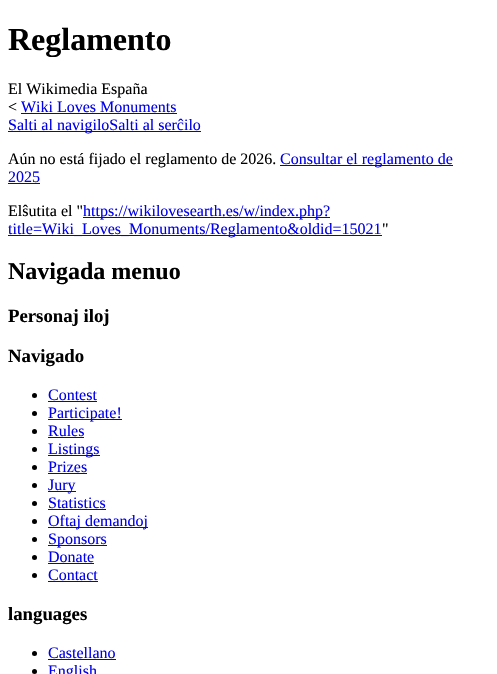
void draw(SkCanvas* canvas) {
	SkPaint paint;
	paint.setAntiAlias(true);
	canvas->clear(0xffffffff);
	SkFont f1(fontMgr->matchFamilyStyle("Liberation Serif", SkFontStyle::Bold()), 32);
	f1.setSubpixel(true);
	paint.setColor(0xff000000);
	canvas->drawString("Reglamento", 8, 50, f1, paint);
	SkFont f2(fontMgr->matchFamilyStyle("Liberation Serif", SkFontStyle::Normal()), 16);
	f2.setSubpixel(true);
	canvas->drawString("El Wikimedia España", 8, 94, f2, paint);
	canvas->drawString("<", 8, 112, f2, paint);
	paint.setColor(0xff0000ee);
	canvas->drawString("Wiki Loves Monuments", 21, 112, f2, paint);
	canvas->drawRect(SkRect::MakeXYWH(21, 113, 156, 1), paint);
	canvas->drawRect(SkRect::MakeXYWH(8, 131, 193, 1), paint);
	canvas->drawString("Salti al navigiloSalti al serĉilo", 8, 130, f2, paint);
	paint.setColor(0xff000000);
	canvas->drawString("Aún no está fijado el reglamento de 2026.", 8, 164, f2, paint);
	paint.setColor(0xff0000ee);
	canvas->drawRect(SkRect::MakeXYWH(280, 165, 173, 1), paint);
	canvas->drawString("Consultar el reglamento de", 280, 164, f2, paint);
	canvas->drawString("2025", 8, 182, f2, paint);
	canvas->drawRect(SkRect::MakeXYWH(8, 183, 32, 1), paint);
	paint.setColor(0xff000000);
	canvas->drawString("Elŝutita el \"", 8, 216, f2, paint);
	paint.setColor(0xff0000ee);
	canvas->drawRect(SkRect::MakeXYWH(83, 217, 247, 1), paint);
	canvas->drawString("https://wikilovesearth.es/w/index.php?", 83, 216, f2, paint);
	canvas->drawRect(SkRect::MakeXYWH(8, 235, 374, 1), paint);
	canvas->drawString("title=Wiki_Loves_Monuments/Reglamento&oldid=15021", 8, 234, f2, paint);
	paint.setColor(0xff000000);
	canvas->drawString("\"", 382, 234, f2, paint);
	SkFont f3(fontMgr->matchFamilyStyle("Liberation Serif", SkFontStyle::Bold()), 24);
	f3.setSubpixel(true);
	canvas->drawString("Navigada menuo", 8, 279, f3, paint);
	SkFont f4(fontMgr->matchFamilyStyle("Liberation Serif", SkFontStyle::Bold()), 18.75);
	f4.setSubpixel(true);
	canvas->drawString("Personaj iloj", 8, 322, f4, paint);
	canvas->drawString("Navigado", 8, 362, f4, paint);
	canvas->drawCircle(34.5, 395.5, 2.5, paint);
	paint.setColor(0xff0000ee);
	canvas->drawString("Contest", 48, 400, f2, paint);
	canvas->drawRect(SkRect::MakeXYWH(48, 401, 49, 1), paint);
	paint.setColor(0xff000000);
	canvas->drawCircle(34.5, 413.5, 2.5, paint);
	paint.setColor(0xff0000ee);
	canvas->drawRect(SkRect::MakeXYWH(48, 419, 74, 1), paint);
	canvas->drawString("Participate!", 48, 418, f2, paint);
	paint.setColor(0xff000000);
	canvas->drawCircle(34.5, 431.5, 2.5, paint);
	paint.setColor(0xff0000ee);
	canvas->drawString("Rules", 48, 436, f2, paint);
	canvas->drawRect(SkRect::MakeXYWH(48, 437, 36, 1), paint);
	paint.setColor(0xff000000);
	canvas->drawCircle(34.5, 449.5, 2.5, paint);
	paint.setColor(0xff0000ee);
	canvas->drawRect(SkRect::MakeXYWH(48, 455, 52, 1), paint);
	canvas->drawString("Listings", 48, 454, f2, paint);
	paint.setColor(0xff000000);
	canvas->drawCircle(34.5, 467.5, 2.5, paint);
	paint.setColor(0xff0000ee);
	canvas->drawString("Prizes", 48, 472, f2, paint);
	canvas->drawRect(SkRect::MakeXYWH(48, 473, 39, 1), paint);
	paint.setColor(0xff000000);
	canvas->drawCircle(34.5, 485.5, 2.5, paint);
	paint.setColor(0xff0000ee);
	canvas->drawRect(SkRect::MakeXYWH(48, 491, 28, 1), paint);
	canvas->drawString("Jury", 48, 490, f2, paint);
	paint.setColor(0xff000000);
	canvas->drawCircle(34.5, 503.5, 2.5, paint);
	paint.setColor(0xff0000ee);
	canvas->drawString("Statistics", 48, 508, f2, paint);
	canvas->drawRect(SkRect::MakeXYWH(48, 509, 58, 1), paint);
	paint.setColor(0xff000000);
	canvas->drawCircle(34.5, 521.5, 2.5, paint);
	paint.setColor(0xff0000ee);
	canvas->drawRect(SkRect::MakeXYWH(48, 527, 100, 1), paint);
	canvas->drawString("Oftaj demandoj", 48, 526, f2, paint);
	paint.setColor(0xff000000);
	canvas->drawCircle(34.5, 539.5, 2.5, paint);
	paint.setColor(0xff0000ee);
	canvas->drawRect(SkRect::MakeXYWH(48, 545, 59, 1), paint);
	canvas->drawString("Sponsors", 48, 544, f2, paint);
	paint.setColor(0xff000000);
	canvas->drawCircle(34.5, 557.5, 2.5, paint);
	paint.setColor(0xff0000ee);
	canvas->drawString("Donate", 48, 562, f2, paint);
	canvas->drawRect(SkRect::MakeXYWH(48, 563, 46, 1), paint);
	paint.setColor(0xff000000);
	canvas->drawCircle(34.5, 575.5, 2.5, paint);
	paint.setColor(0xff0000ee);
	canvas->drawString("Contact", 48, 580, f2, paint);
	canvas->drawRect(SkRect::MakeXYWH(48, 581, 50, 1), paint);
	paint.setColor(0xff000000);
	canvas->drawString("languages", 8, 620, f4, paint);
	canvas->drawCircle(34.5, 653.5, 2.5, paint);
	paint.setColor(0xff0000ee);
	canvas->drawString("Castellano", 48, 658, f2, paint);
	canvas->drawRect(SkRect::MakeXYWH(48, 659, 68, 1), paint);
	paint.setColor(0xff000000);
	canvas->drawCircle(34.5, 671.5, 2.5, paint);
	paint.setColor(0xff0000ee);
	canvas->drawString("English", 48, 676, f2, paint);
}
